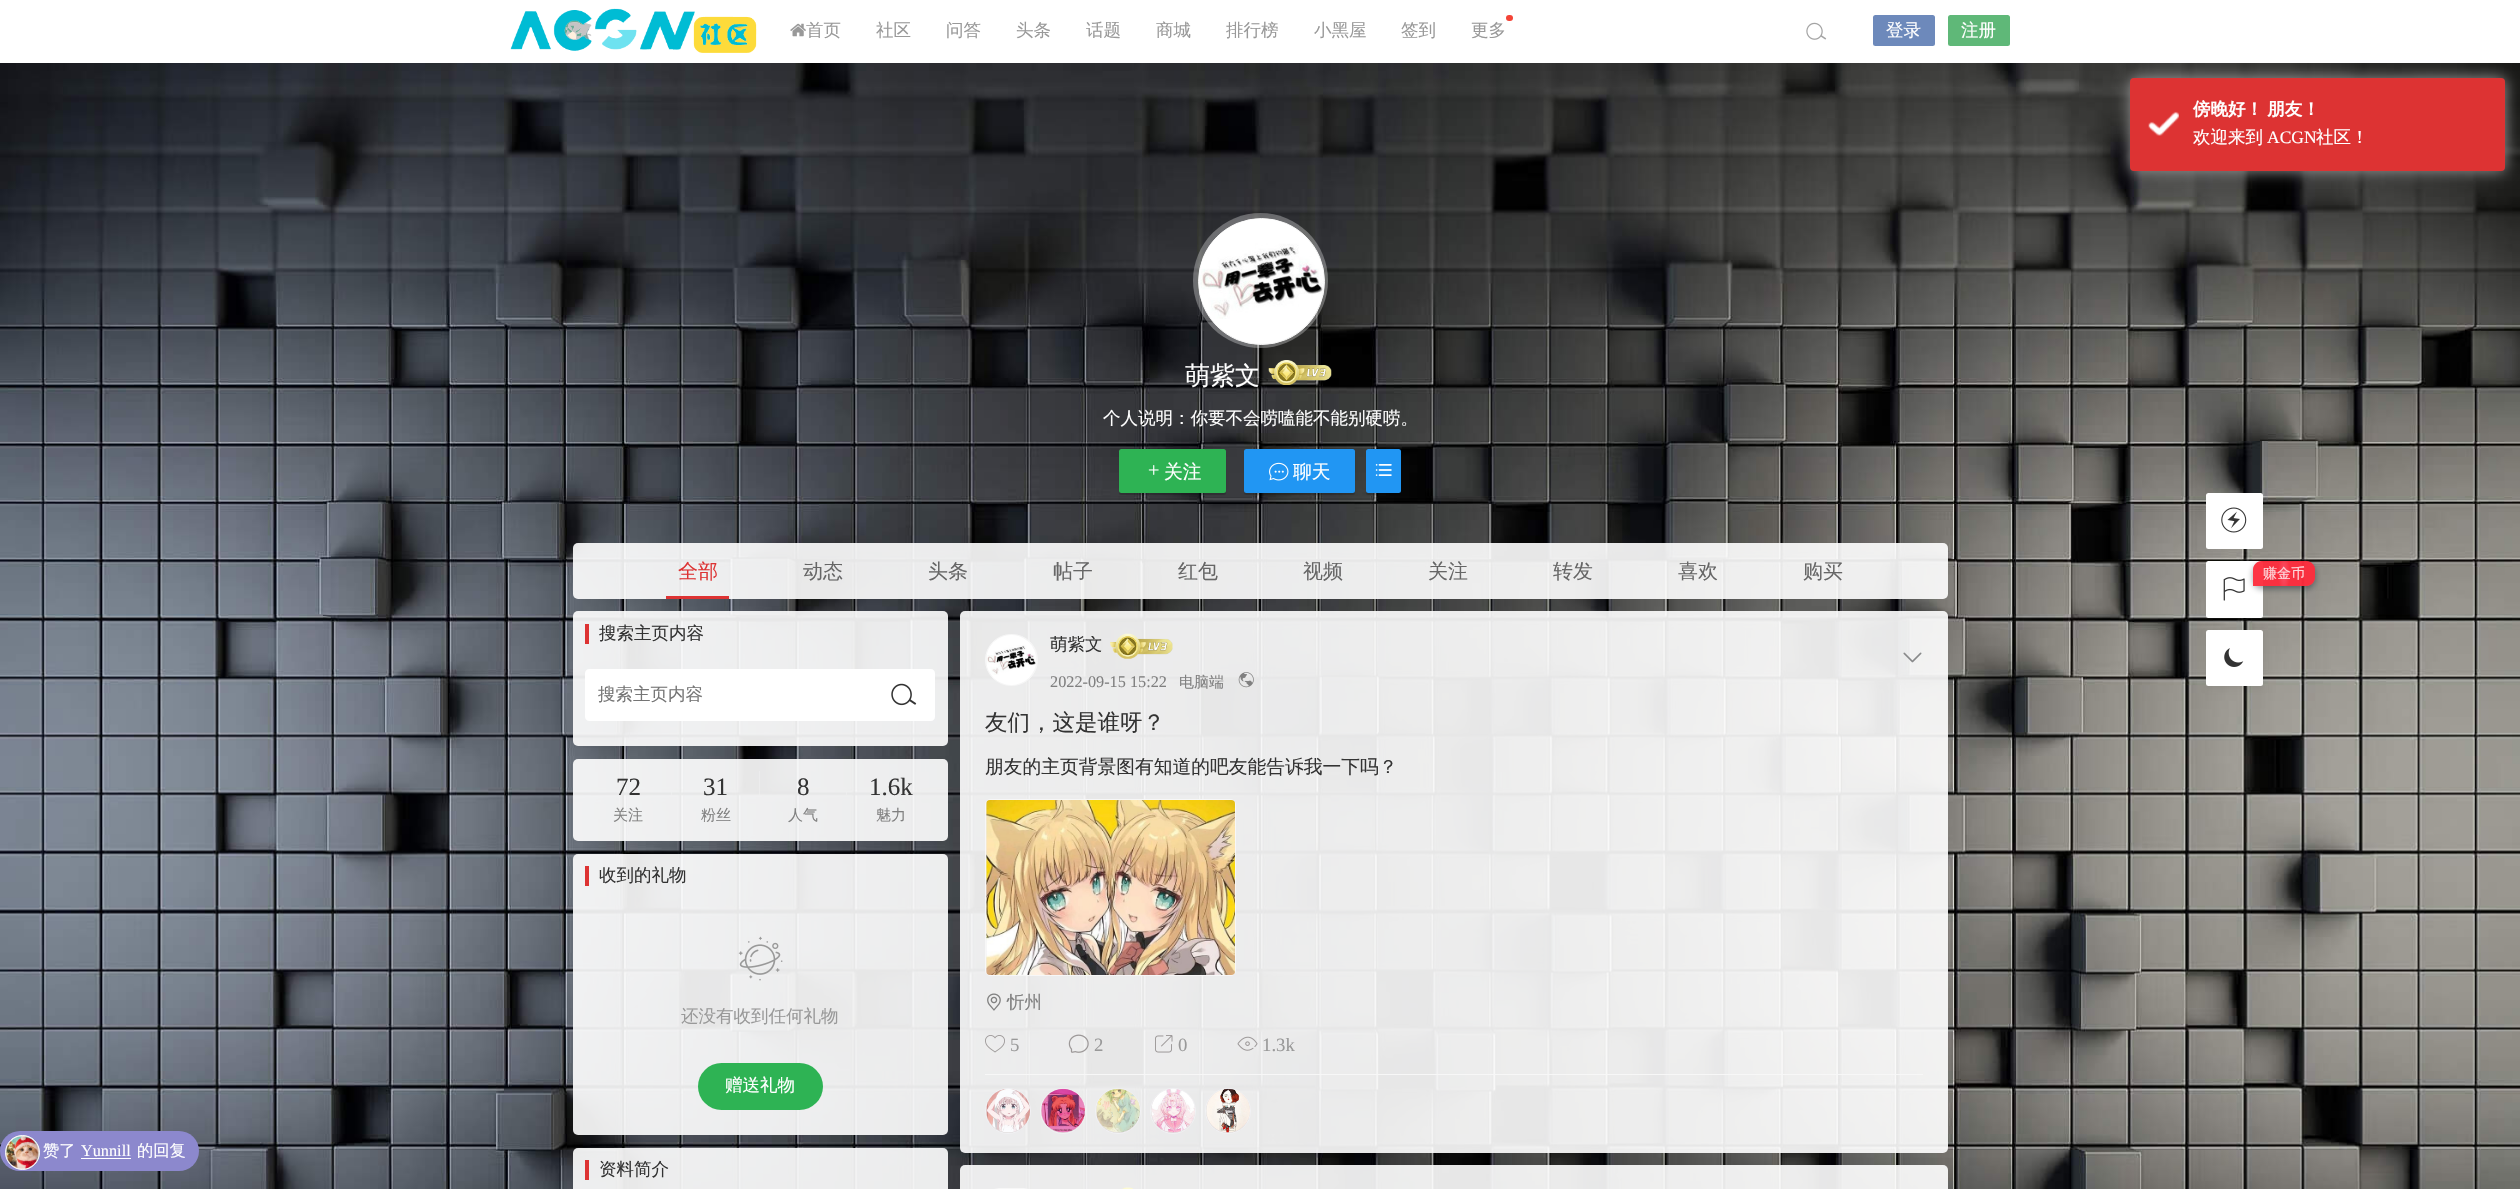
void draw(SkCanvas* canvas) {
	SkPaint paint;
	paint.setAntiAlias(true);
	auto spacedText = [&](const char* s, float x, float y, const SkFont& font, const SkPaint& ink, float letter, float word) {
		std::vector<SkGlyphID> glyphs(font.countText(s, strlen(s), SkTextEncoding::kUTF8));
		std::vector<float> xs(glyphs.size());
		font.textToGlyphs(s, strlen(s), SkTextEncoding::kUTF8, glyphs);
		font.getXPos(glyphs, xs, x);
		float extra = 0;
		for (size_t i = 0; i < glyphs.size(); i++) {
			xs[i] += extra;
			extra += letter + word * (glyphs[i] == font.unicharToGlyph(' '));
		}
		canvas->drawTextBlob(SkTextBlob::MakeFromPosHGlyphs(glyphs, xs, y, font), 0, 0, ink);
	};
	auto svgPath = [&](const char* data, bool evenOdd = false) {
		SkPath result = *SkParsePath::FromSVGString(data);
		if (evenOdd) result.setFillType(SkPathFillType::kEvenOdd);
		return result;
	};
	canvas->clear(0xffffffff);
	canvas->drawImageRect(SkImages::DeferredFromEncodedData(SkData::MakeFromFileName("img1.png")), SkRect::MakeXYWH(510, 8, 247, 45), SkSamplingOptions());
	canvas->drawImageRect(SkImages::DeferredFromEncodedData(SkData::MakeFromFileName("img2.png")), SkRect::MakeXYWH(790, 23, 16, 14), SkSamplingOptions());
	SkFont f1(fontMgr->matchFamilyStyle("WenQuanYi Zen Hei", SkFontStyle(500, SkFontStyle::kNormal_Width, SkFontStyle::kUpright_Slant)), 17.5);
	f1.setSubpixel(true);
	paint.setColor(0xff999999);
	canvas->drawString("首页", 806, 36, f1, paint);
	canvas->drawString("社区", 876, 36, f1, paint);
	canvas->drawString("问答", 946, 36, f1, paint);
	canvas->drawString("头条", 1016, 36, f1, paint);
	canvas->drawString("话题", 1086, 36, f1, paint);
	canvas->drawString("商城", 1156, 36, f1, paint);
	canvas->drawString("排行榜", 1226, 36, f1, paint);
	canvas->drawString("小黑屋", 1314, 36, f1, paint);
	canvas->drawString("签到", 1401, 36, f1, paint);
	paint.setColor(0xfff44336);
	canvas->drawRoundRect(SkRect::MakeXYWH(1506, 15, 7, 6), 3, 3, paint);
	paint.setColor(0xff999999);
	canvas->drawString("更多", 1471, 36, f1, paint);
	canvas->drawImageRect(SkImages::DeferredFromEncodedData(SkData::MakeFromFileName("img3.png")), SkRect::MakeXYWH(1806, 22, 21, 18), SkSamplingOptions());
	paint.setColor(0xff6d89bb);
	canvas->drawRoundRect(SkRect::MakeXYWH(1873, 15, 62, 31), 2.5, 2.5, paint);
	paint.setColor(0xffffffff);
	canvas->drawString("登录", 1886, 36, f1, paint);
	paint.setColor(0xff5fb878);
	canvas->drawRoundRect(SkRect::MakeXYWH(1948, 15, 62, 31), 2.5, 2.5, paint);
	paint.setColor(0xffffffff);
	canvas->drawString("注册", 1961, 36, f1, paint);
	canvas->drawImageRect(SkImages::DeferredFromEncodedData(SkData::MakeFromFileName("img5.png")), SkRect::MakeXYWH(0, 63, 2520, 1126), SkSamplingOptions());
	paint.setColor(0xff999999);
	paint.setMaskFilter(SkMaskFilter::MakeBlur(kNormal_SkBlurStyle, 7.5));
	canvas->drawRoundRect(SkRect::MakeXYWH(2130, 78, 375, 93), 4, 4, paint);
	paint.setMaskFilter(nullptr);
	paint.setColor(0xffdd3333);
	canvas->drawRoundRect(SkRect::MakeXYWH(2130, 78, 375, 93), 4, 4, paint);
	canvas->drawImageRect(SkImages::DeferredFromEncodedData(SkData::MakeFromFileName("img4.png")), SkRect::MakeXYWH(2148, 111, 31, 25), SkSamplingOptions());
	SkFont f2(fontMgr->matchFamilyStyle("WenQuanYi Zen Hei", SkFontStyle::Bold()), 17.5);
	f2.setSubpixel(true);
	paint.setColor(0xffffffff);
	spacedText("傍晚好！ 朋友！", 2193, 115, f2, paint, 0, -1);
	canvas->drawString("欢迎来到", 2193, 143, f1, paint);
	SkFont f3(fontMgr->matchFamilyStyle("Liberation Serif", SkFontStyle::Normal()), 17.5);
	f3.setSubpixel(true);
	canvas->drawString("ACGN", 2267, 143, f3, paint);
	canvas->drawString("社区！", 2316, 143, f1, paint);
	paint.setColor(0x4dffffff);
	canvas->drawCircle(1260.5, 280.5, 67.5, paint);
	paint.setColor(0xfff7f7f7);
	canvas->drawCircle(1261.5, 281.5, 63, paint);
	paint.setStroke(true);
	paint.setStrokeWidth(1);
	canvas->drawCircle(1261.5, 281.5, 63, paint);
	canvas->drawImageRect(SkImages::DeferredFromEncodedData(SkData::MakeFromFileName("img6.png")), SkRect::MakeXYWH(1199, 219, 125, 125), SkSamplingOptions());
	SkFont f4(fontMgr->matchFamilyStyle("WenQuanYi Zen Hei", SkFontStyle(500, SkFontStyle::kNormal_Width, SkFontStyle::kUpright_Slant)), 25);
	f4.setSubpixel(true);
	paint.setStroke(false);
	paint.setColor(0xffffffff);
	canvas->drawString("萌紫文", 1185, 384, f4, paint);
	canvas->drawImageRect(SkImages::DeferredFromEncodedData(SkData::MakeFromFileName("img7.png")), SkRect::MakeXYWH(1268, 360, 64, 25), SkSamplingOptions());
	canvas->drawString("个人说明：你要不会唠嗑能不能别硬唠。", 1103, 424, f1, paint);
	paint.setColor(0x33000000);
	paint.setMaskFilter(SkMaskFilter::MakeBlur(kNormal_SkBlurStyle, 0.5));
	canvas->drawRoundRect(SkRect::MakeXYWH(1119, 451, 107, 44), 2.5, 2.5, paint);
	paint.setMaskFilter(nullptr);
	paint.setColor(0xff2eb354);
	canvas->drawRoundRect(SkRect::MakeXYWH(1119, 449, 107, 44), 2.5, 2.5, paint);
	canvas->drawImageRect(SkImages::DeferredFromEncodedData(SkData::MakeFromFileName("img8.png")), SkRect::MakeXYWH(1148, 465, 11, 10), SkSamplingOptions());
	SkFont f5(fontMgr->matchFamilyStyle("WenQuanYi Zen Hei", SkFontStyle(500, SkFontStyle::kNormal_Width, SkFontStyle::kUpright_Slant)), 18.75);
	f5.setSubpixel(true);
	paint.setColor(0xffffffff);
	canvas->drawString("关注", 1164, 478, f5, paint);
	paint.setColor(0x33000000);
	paint.setMaskFilter(SkMaskFilter::MakeBlur(kNormal_SkBlurStyle, 0.5));
	canvas->drawRoundRect(SkRect::MakeXYWH(1244, 451, 111, 44), 2.5, 2.5, paint);
	paint.setMaskFilter(nullptr);
	paint.setColor(0xff2196f3);
	canvas->drawRoundRect(SkRect::MakeXYWH(1244, 449, 111, 44), 2.5, 2.5, paint);
	canvas->drawImageRect(SkImages::DeferredFromEncodedData(SkData::MakeFromFileName("img9.png")), SkRect::MakeXYWH(1269, 462, 20, 19), SkSamplingOptions());
	paint.setColor(0xffffffff);
	canvas->drawString("聊天", 1293, 478, f5, paint);
	paint.setColor(0x33000000);
	paint.setMaskFilter(SkMaskFilter::MakeBlur(kNormal_SkBlurStyle, 0.5));
	canvas->drawRoundRect(SkRect::MakeXYWH(1366, 451, 35, 44), 2.5, 2.5, paint);
	paint.setMaskFilter(nullptr);
	paint.setColor(0xff2196f3);
	canvas->drawRoundRect(SkRect::MakeXYWH(1366, 449, 35, 44), 2.5, 2.5, paint);
	canvas->drawImageRect(SkImages::DeferredFromEncodedData(SkData::MakeFromFileName("img10.png")), SkRect::MakeXYWH(1375, 464, 17, 12), SkSamplingOptions());
	paint.setColor(0xe6ffffff);
	canvas->drawRoundRect(SkRect::MakeXYWH(573, 543, 1375, 56), 5, 5, paint);
	SkFont f6(fontMgr->matchFamilyStyle("WenQuanYi Zen Hei", SkFontStyle(500, SkFontStyle::kNormal_Width, SkFontStyle::kUpright_Slant)), 20);
	f6.setSubpixel(true);
	paint.setColor(0xffdd3333);
	canvas->drawString("全部", 678, 578, f6, paint);
	canvas->drawRect(SkRect::MakeXYWH(666, 596, 63, 3), paint);
	paint.setColor(0xff666666);
	canvas->drawString("动态", 803, 578, f6, paint);
	canvas->drawString("头条", 928, 578, f6, paint);
	canvas->drawString("帖子", 1053, 578, f6, paint);
	canvas->drawString("红包", 1178, 578, f6, paint);
	canvas->drawString("视频", 1303, 578, f6, paint);
	canvas->drawString("关注", 1428, 578, f6, paint);
	canvas->drawString("转发", 1553, 578, f6, paint);
	canvas->drawString("喜欢", 1678, 578, f6, paint);
	canvas->drawString("购买", 1803, 578, f6, paint);
	paint.setColor(0xe6ffffff);
	canvas->drawRoundRect(SkRect::MakeXYWH(573, 611, 375, 135), 5, 5, paint);
	paint.setColor(0xffdd3333);
	canvas->drawRect(SkRect::MakeXYWH(585, 624, 4, 20), paint);
	paint.setColor(0xff333333);
	canvas->drawString("搜索主页内容", 599, 639, f1, paint);
	paint.setColor(0xffffffff);
	canvas->drawPath(svgPath("M589 669H873V721H589C587 721 585 719 585 717V673C585 671 587 669 589 669Z"), paint);
	paint.setColor(0xff757575);
	canvas->drawString("搜索主页内容", 598, 700, f1, paint);
	paint.setColor(0xffffffff);
	canvas->drawPath(svgPath("M873 669H931C933 669 935 671 935 673V717C935 719 933 721 931 721H873Z"), paint);
	canvas->drawImageRect(SkImages::DeferredFromEncodedData(SkData::MakeFromFileName("img11.png")), SkRect::MakeXYWH(891, 683, 26, 23), SkSamplingOptions());
	paint.setColor(0xe6ffffff);
	canvas->drawRoundRect(SkRect::MakeXYWH(573, 759, 375, 82), 5, 5, paint);
	paint.setColor(0x80f1f1f1);
	canvas->drawRect(SkRect::MakeXYWH(671, 792, 1, 3), paint);
	SkFont f7(fontMgr->matchFamilyStyle("Liberation Serif", SkFontStyle::Normal()), 25);
	f7.setSubpixel(true);
	paint.setColor(0xff333333);
	canvas->drawString("72", 616, 795, f7, paint);
	SkFont f8(fontMgr->matchFamilyStyle("WenQuanYi Zen Hei", SkFontStyle(500, SkFontStyle::kNormal_Width, SkFontStyle::kUpright_Slant)), 15);
	f8.setSubpixel(true);
	paint.setColor(0xff808080);
	canvas->drawString("关注", 613, 820, f8, paint);
	paint.setColor(0x80f1f1f1);
	canvas->drawRect(SkRect::MakeXYWH(759, 771, 1, 24), paint);
	paint.setColor(0xff333333);
	canvas->drawString("31", 703, 795, f7, paint);
	paint.setColor(0xff808080);
	canvas->drawString("粉丝", 701, 820, f8, paint);
	paint.setColor(0x80f1f1f1);
	canvas->drawRect(SkRect::MakeXYWH(846, 792, 1, 3), paint);
	paint.setColor(0xff333333);
	canvas->drawString("8", 797, 795, f7, paint);
	paint.setColor(0xff808080);
	canvas->drawString("人气", 788, 820, f8, paint);
	paint.setColor(0xff333333);
	canvas->drawString("1.6k", 869, 795, f7, paint);
	paint.setColor(0xff808080);
	canvas->drawString("魅力", 876, 820, f8, paint);
	paint.setColor(0xe6ffffff);
	canvas->drawRoundRect(SkRect::MakeXYWH(573, 854, 375, 281), 5, 5, paint);
	paint.setColor(0xffdd3333);
	canvas->drawRect(SkRect::MakeXYWH(585, 866, 4, 20), paint);
	paint.setColor(0xff333333);
	canvas->drawString("收到的礼物", 599, 881, f1, paint);
	canvas->drawImageRect(SkImages::DeferredFromEncodedData(SkData::MakeFromFileName("img12.png")), SkRect::MakeXYWH(738, 936, 45, 45), SkSamplingOptions());
	paint.setColor(0xff999999);
	canvas->drawString("还没有收到任何礼物", 681, 1022, f1, paint);
	paint.setColor(0xff2eb354);
	canvas->drawRoundRect(SkRect::MakeXYWH(698, 1063, 125, 47), 23.5, 23.5, paint);
	paint.setColor(0xffffffff);
	canvas->drawString("赠送礼物", 725, 1091, f1, paint);
	paint.setColor(0xe6ffffff);
	canvas->drawRoundRect(SkRect::MakeXYWH(573, 1148, 375, 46), 5, 5, paint);
	paint.setColor(0xffdd3333);
	canvas->drawRect(SkRect::MakeXYWH(585, 1160, 4, 20), paint);
	paint.setColor(0xff333333);
	canvas->drawString("资料简介", 599, 1175, f1, paint);
	paint.setColor(0xe6ffffff);
	canvas->drawRoundRect(SkRect::MakeXYWH(960, 611, 988, 542), 5, 5, paint);
	paint.setColor(0xfff7f7f7);
	canvas->drawRoundRect(SkRect::MakeXYWH(985.5, 634.5, 52, 51), 25.5, 25.5, paint);
	paint.setStroke(true);
	canvas->drawRoundRect(SkRect::MakeXYWH(985.5, 634.5, 52, 51), 25.5, 25.5, paint);
	canvas->drawImageRect(SkImages::DeferredFromEncodedData(SkData::MakeFromFileName("img13.png")), SkRect::MakeXYWH(987, 635, 49, 50), SkSamplingOptions());
	canvas->save();
	canvas->clipRect(SkRect::MakeXYWH(1050, 636, 53, 23));
	paint.setStroke(false);
	paint.setColor(0xff333333);
	canvas->drawString("萌紫文", 1050, 650, f1, paint);
	canvas->restore();
	canvas->drawImageRect(SkImages::DeferredFromEncodedData(SkData::MakeFromFileName("img14.png")), SkRect::MakeXYWH(1110, 633, 63, 26), SkSamplingOptions());
	SkFont f9(fontMgr->matchFamilyStyle("Liberation Serif", SkFontStyle::Normal()), 16.25);
	f9.setSubpixel(true);
	paint.setColor(0xff808080);
	canvas->drawString("2022-09-15 15:22", 1050, 687, f9, paint);
	canvas->drawString("电脑端", 1179, 687, f8, paint);
	canvas->drawImageRect(SkImages::DeferredFromEncodedData(SkData::MakeFromFileName("img15.png")), SkRect::MakeXYWH(1238, 672, 16, 16), SkSamplingOptions());
	canvas->drawImageRect(SkImages::DeferredFromEncodedData(SkData::MakeFromFileName("img16.png")), SkRect::MakeXYWH(1903, 652, 19, 11), SkSamplingOptions());
	SkFont f10(fontMgr->matchFamilyStyle("WenQuanYi Zen Hei", SkFontStyle(500, SkFontStyle::kNormal_Width, SkFontStyle::kUpright_Slant)), 22.5);
	f10.setSubpixel(true);
	paint.setColor(0xff333333);
	canvas->drawString("友们，这是谁呀？", 985, 730, f10, paint);
	canvas->drawString("朋友的主页背景图有知道的吧友能告诉我一下吗？", 985, 773, f5, paint);
	paint.setStroke(true);
	paint.setColor(0xfff7f7f7);
	canvas->drawRoundRect(SkRect::MakeXYWH(985.5, 799.5, 250, 176), 4.5, 4.5, paint);
	canvas->drawImageRect(SkImages::DeferredFromEncodedData(SkData::MakeFromFileName("img17.png")), SkRect::MakeXYWH(986, 800, 249, 175), SkSamplingOptions());
	canvas->drawImageRect(SkImages::DeferredFromEncodedData(SkData::MakeFromFileName("img18.png")), SkRect::MakeXYWH(987, 993, 14, 18), SkSamplingOptions());
	paint.setStroke(false);
	paint.setColor(0xff808080);
	canvas->drawString("忻州", 1007, 1008, f1, paint);
	canvas->drawImageRect(SkImages::DeferredFromEncodedData(SkData::MakeFromFileName("img19.png")), SkRect::MakeXYWH(985, 1035, 20, 18), SkSamplingOptions());
	SkFont f11(fontMgr->matchFamilyStyle("Liberation Serif", SkFontStyle::Normal()), 18.75);
	f11.setSubpixel(true);
	paint.setColor(0xff999999);
	canvas->drawString("5", 1010, 1051, f11, paint);
	canvas->drawImageRect(SkImages::DeferredFromEncodedData(SkData::MakeFromFileName("img20.png")), SkRect::MakeXYWH(1068, 1034, 21, 19), SkSamplingOptions());
	canvas->drawString("2", 1094, 1051, f11, paint);
	canvas->drawImageRect(SkImages::DeferredFromEncodedData(SkData::MakeFromFileName("img21.png")), SkRect::MakeXYWH(1155, 1035, 18, 18), SkSamplingOptions());
	canvas->drawString("0", 1178, 1051, f11, paint);
	canvas->drawImageRect(SkImages::DeferredFromEncodedData(SkData::MakeFromFileName("img22.png")), SkRect::MakeXYWH(1237, 1036, 21, 15), SkSamplingOptions());
	canvas->drawString("1.3k", 1262, 1051, f11, paint);
	paint.setColor(0xfff7f7f7);
	canvas->drawRect(SkRect::MakeXYWH(985, 1074, 938, 1), paint);
	paint.setColor(0xffe0dcdc);
	canvas->drawCircle(1008, 1111, 22.5, paint);
	paint.setStroke(true);
	paint.setColor(0xfff2f2f5);
	canvas->drawCircle(1008, 1111, 22.5, paint);
	canvas->drawImageRect(SkImages::DeferredFromEncodedData(SkData::MakeFromFileName("img23.png")), SkRect::MakeXYWH(986, 1089, 44, 44), SkSamplingOptions());
	paint.setStroke(false);
	paint.setColor(0xffe0dcdc);
	canvas->drawCircle(1063, 1111, 22.5, paint);
	paint.setStroke(true);
	paint.setColor(0xfff2f2f5);
	canvas->drawCircle(1063, 1111, 22.5, paint);
	canvas->drawImageRect(SkImages::DeferredFromEncodedData(SkData::MakeFromFileName("img24.png")), SkRect::MakeXYWH(1041, 1088, 44, 45), SkSamplingOptions());
	paint.setStroke(false);
	paint.setColor(0xffe0dcdc);
	canvas->drawCircle(1118, 1111, 22.5, paint);
	paint.setStroke(true);
	paint.setColor(0xfff2f2f5);
	canvas->drawCircle(1118, 1111, 22.5, paint);
	canvas->drawImageRect(SkImages::DeferredFromEncodedData(SkData::MakeFromFileName("img25.png")), SkRect::MakeXYWH(1096, 1088, 44, 45), SkSamplingOptions());
	paint.setStroke(false);
	paint.setColor(0xffe0dcdc);
	canvas->drawCircle(1173, 1111, 22.5, paint);
	paint.setStroke(true);
	paint.setColor(0xfff2f2f5);
	canvas->drawCircle(1173, 1111, 22.5, paint);
	canvas->drawImageRect(SkImages::DeferredFromEncodedData(SkData::MakeFromFileName("img26.png")), SkRect::MakeXYWH(1151, 1089, 44, 44), SkSamplingOptions());
	paint.setStroke(false);
	paint.setColor(0xffe0dcdc);
	canvas->drawCircle(1228, 1111, 22.5, paint);
	paint.setStroke(true);
	paint.setColor(0xfff2f2f5);
	canvas->drawCircle(1228, 1111, 22.5, paint);
	canvas->drawImageRect(SkImages::DeferredFromEncodedData(SkData::MakeFromFileName("img27.png")), SkRect::MakeXYWH(1206, 1088, 44, 45), SkSamplingOptions());
	paint.setStroke(false);
	paint.setColor(0xe6ffffff);
	canvas->drawRoundRect(SkRect::MakeXYWH(960, 1165, 988, 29), 5, 5, paint);
	paint.setStroke(true);
	paint.setColor(0xfff7f7f7);
	canvas->drawRoundRect(SkRect::MakeXYWH(985.5, 1188.5, 52, 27), 25.5, 25.5, paint);
	canvas->drawImageRect(SkImages::DeferredFromEncodedData(SkData::MakeFromFileName("img28.png")), SkRect::MakeXYWH(1122, 1187, 11, 2), SkSamplingOptions());
	paint.setStroke(false);
	paint.setColor(0xffffffff);
	canvas->drawRoundRect(SkRect::MakeXYWH(2206, 493, 57, 56), 2.5, 2.5, paint);
	canvas->drawImageRect(SkImages::DeferredFromEncodedData(SkData::MakeFromFileName("img29.png")), SkRect::MakeXYWH(2221, 507, 26, 26), SkSamplingOptions());
	canvas->drawRoundRect(SkRect::MakeXYWH(2206, 561, 57, 57), 2.5, 2.5, paint);
	canvas->drawImageRect(SkImages::DeferredFromEncodedData(SkData::MakeFromFileName("img30.png")), SkRect::MakeXYWH(2223, 577, 22, 24), SkSamplingOptions());
	canvas->save();
	canvas->clipPath(svgPath("M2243 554H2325V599H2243ZM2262 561H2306C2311 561 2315 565 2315 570V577C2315 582 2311 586 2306 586H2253V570C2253 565 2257 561 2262 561Z", true), true);
	paint.setColor(0x69061920);
	paint.setMaskFilter(SkMaskFilter::MakeBlur(kNormal_SkBlurStyle, 3));
	canvas->drawRoundRect(SkRect::MakeXYWH(2253, 564, 62, 25), 9, 9, paint);
	paint.setMaskFilter(nullptr);
	canvas->restore();
	paint.setColor(0xccfc2c3c);
	canvas->drawPath(svgPath("M2262 561H2306C2311 561 2315 565 2315 570V577C2315 582 2311 586 2306 586H2253V570C2253 565 2257 561 2262 561Z"), paint);
	{
		const SkColor colors[] = {0xccfe576f, 0xccfc2c3c};
		const float stops[] = {0, 1};
		SkMatrix m = SkMatrix::Translate(2284, 573).preScale(5.6, 21);
		paint.setShader(SkGradientShader::MakeRadial({0, 0}, 1, colors, stops, 2, SkTileMode::kClamp, 0, &m));
		paint.setAlpha(255);
	}
	canvas->drawPath(svgPath("M2262 561H2306C2311 561 2315 565 2315 570V577C2315 582 2311 586 2306 586H2253V570C2253 565 2257 561 2262 561Z"), paint);
	SkFont f12(fontMgr->matchFamilyStyle("WenQuanYi Zen Hei", SkFontStyle(500, SkFontStyle::kNormal_Width, SkFontStyle::kUpright_Slant)), 14);
	f12.setSubpixel(true);
	paint.setShader(nullptr);
	paint.setColor(0xfffed7da);
	canvas->drawString("赚金币", 2263, 578, f12, paint);
	paint.setColor(0x0d000000);
	paint.setMaskFilter(SkMaskFilter::MakeBlur(kNormal_SkBlurStyle, 2.5));
	canvas->drawRoundRect(SkRect::MakeXYWH(2206, 633, 57, 56), 2.5, 2.5, paint);
	paint.setMaskFilter(nullptr);
	paint.setColor(0xffffffff);
	canvas->drawRoundRect(SkRect::MakeXYWH(2206, 630, 57, 56), 2.5, 2.5, paint);
	canvas->drawImageRect(SkImages::DeferredFromEncodedData(SkData::MakeFromFileName("img31.png")), SkRect::MakeXYWH(2224, 648, 20, 19), SkSamplingOptions());
	paint.setColor(0xff8c88cd);
	canvas->drawRoundRect(SkRect::MakeXYWH(0, 1131, 199, 40), 20, 20, paint);
	paint.setColor(0xfff7f7f7);
	canvas->drawCircle(22.5, 1152.5, 17, paint);
	paint.setStroke(true);
	canvas->drawCircle(22.5, 1152.5, 17, paint);
	canvas->drawImageRect(SkImages::DeferredFromEncodedData(SkData::MakeFromFileName("img32.png")), SkRect::MakeXYWH(6, 1136, 33, 33), SkSamplingOptions());
	SkFont f13(fontMgr->matchFamilyStyle("WenQuanYi Zen Hei", SkFontStyle(500, SkFontStyle::kNormal_Width, SkFontStyle::kUpright_Slant)), 16.25);
	f13.setSubpixel(true);
	paint.setStroke(false);
	paint.setColor(0xffffffff);
	canvas->drawString("赞了", 43, 1156, f13, paint);
	canvas->drawString("Yunnill", 81, 1156, f9, paint);
	canvas->drawRect(SkRect::MakeXYWH(81, 1158, 50, 1), paint);
	canvas->drawString("的回复", 137, 1156, f13, paint);
}
